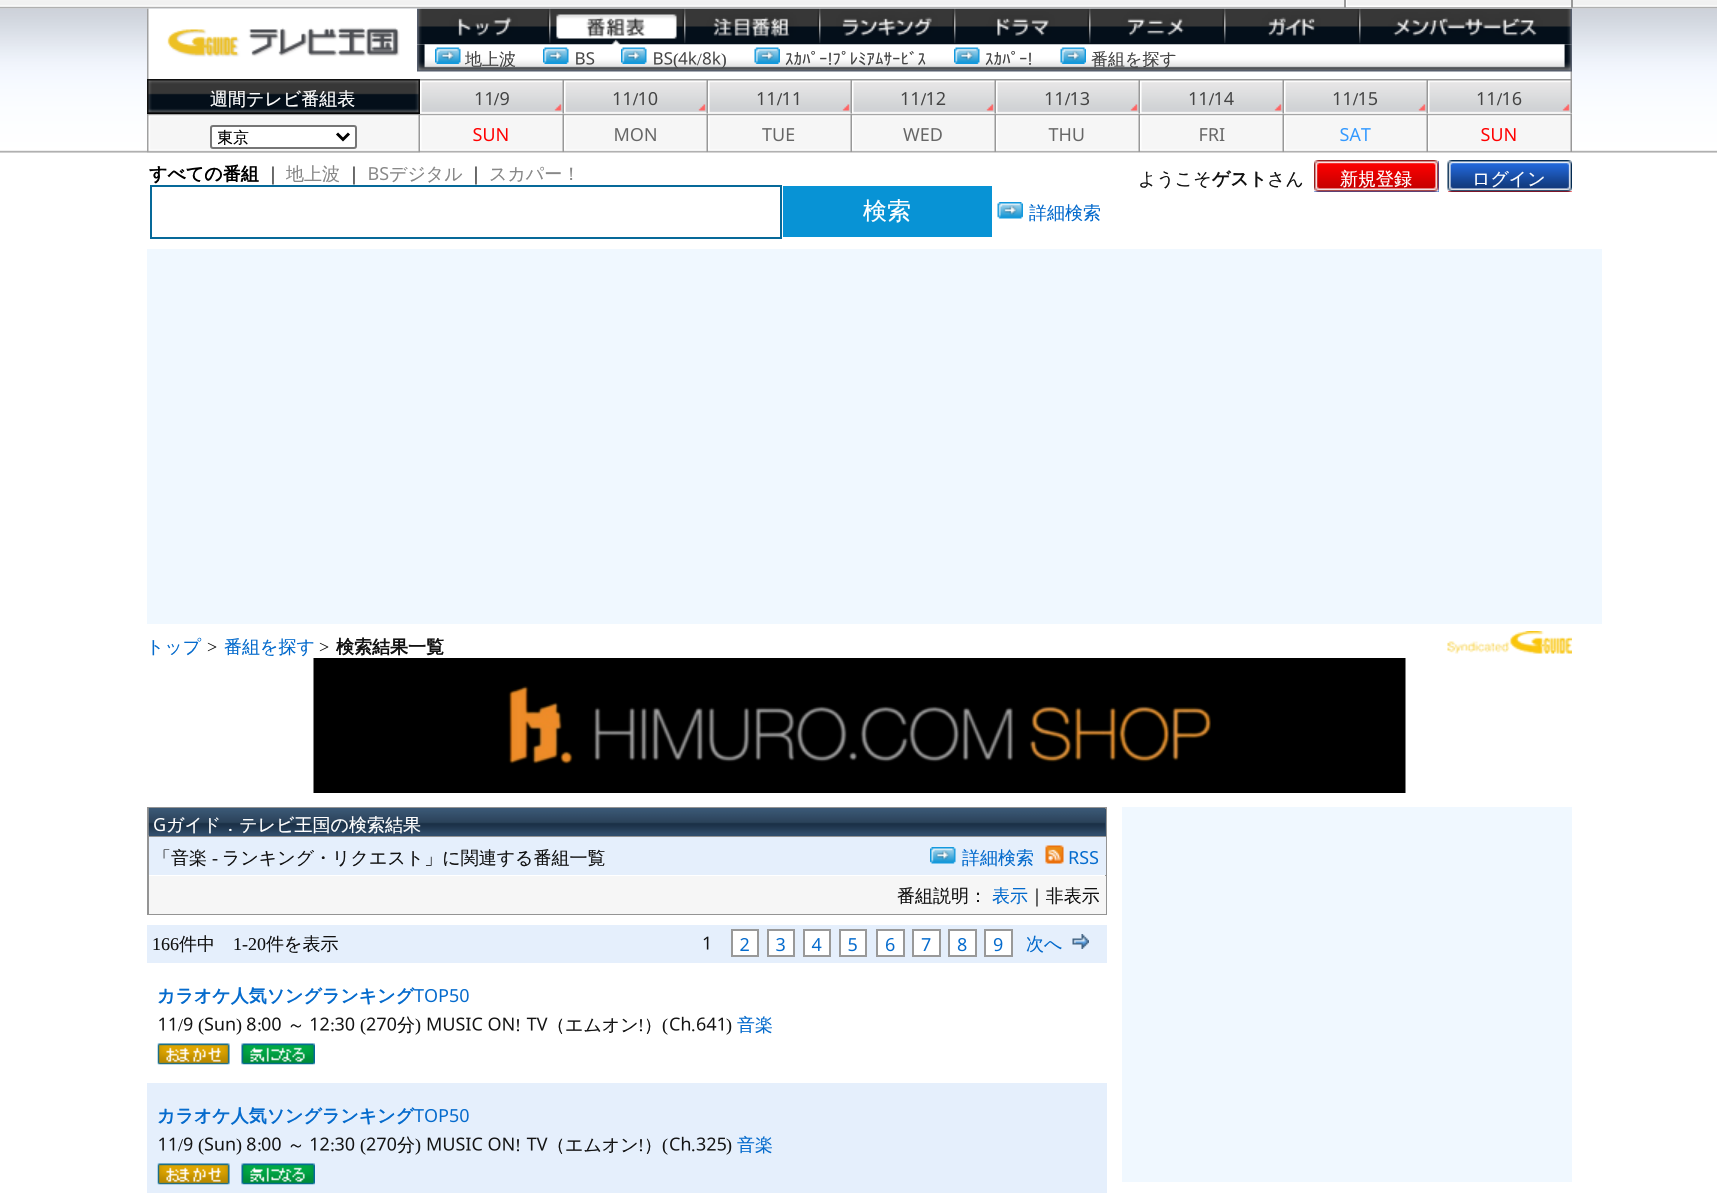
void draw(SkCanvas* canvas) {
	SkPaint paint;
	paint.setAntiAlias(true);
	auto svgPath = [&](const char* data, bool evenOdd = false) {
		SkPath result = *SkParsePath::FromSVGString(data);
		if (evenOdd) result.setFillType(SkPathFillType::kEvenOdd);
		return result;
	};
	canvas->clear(0xffffffff);
	canvas->drawImageRect(SkImages::DeferredFromEncodedData(SkData::MakeFromFileName("img1.png")), SkRect::MakeXYWH(0, 0, 1717, 9), SkSamplingOptions());
	canvas->drawImageRect(SkImages::DeferredFromEncodedData(SkData::MakeFromFileName("img2.png")), SkRect::MakeXYWH(1346, 0, 225, 7), SkSamplingOptions());
	paint.setColor(0xff999999);
	canvas->drawRect(SkRect::MakeXYWH(1571, 0, 2, 8), paint);
	canvas->drawRect(SkRect::MakeXYWH(1344, 0, 2, 8), paint);
	canvas->drawImageRect(SkImages::DeferredFromEncodedData(SkData::MakeFromFileName("img3.png")), SkRect::MakeXYWH(0, 8, 1717, 145), SkSamplingOptions());
	canvas->drawImageRect(SkImages::DeferredFromEncodedData(SkData::MakeFromFileName("img4.png")), SkRect::MakeXYWH(147, 8, 1425, 71), SkSamplingOptions());
	canvas->drawImageRect(SkImages::DeferredFromEncodedData(SkData::MakeFromFileName("img5.png")), SkRect::MakeXYWH(167, 27, 233, 30), SkSamplingOptions());
	canvas->drawImageRect(SkImages::DeferredFromEncodedData(SkData::MakeFromFileName("img6.png")), SkRect::MakeXYWH(417, 8, 132, 37), SkSamplingOptions());
	canvas->drawImageRect(SkImages::DeferredFromEncodedData(SkData::MakeFromFileName("img7.png")), SkRect::MakeXYWH(549, 8, 135, 37), SkSamplingOptions());
	canvas->drawImageRect(SkImages::DeferredFromEncodedData(SkData::MakeFromFileName("img8.png")), SkRect::MakeXYWH(684, 8, 135, 37), SkSamplingOptions());
	canvas->drawImageRect(SkImages::DeferredFromEncodedData(SkData::MakeFromFileName("img9.png")), SkRect::MakeXYWH(819, 8, 135, 37), SkSamplingOptions());
	canvas->drawImageRect(SkImages::DeferredFromEncodedData(SkData::MakeFromFileName("img10.png")), SkRect::MakeXYWH(954, 8, 135, 37), SkSamplingOptions());
	canvas->drawImageRect(SkImages::DeferredFromEncodedData(SkData::MakeFromFileName("img11.png")), SkRect::MakeXYWH(1089, 8, 135, 37), SkSamplingOptions());
	canvas->drawImageRect(SkImages::DeferredFromEncodedData(SkData::MakeFromFileName("img12.png")), SkRect::MakeXYWH(1224, 8, 135, 37), SkSamplingOptions());
	canvas->drawImageRect(SkImages::DeferredFromEncodedData(SkData::MakeFromFileName("img13.png")), SkRect::MakeXYWH(1359, 8, 213, 37), SkSamplingOptions());
	canvas->drawImageRect(SkImages::DeferredFromEncodedData(SkData::MakeFromFileName("img14.png")), SkRect::MakeXYWH(417, 44, 1155, 28), SkSamplingOptions());
	canvas->drawImageRect(SkImages::DeferredFromEncodedData(SkData::MakeFromFileName("img15.png")), SkRect::MakeXYWH(435, 47, 26, 17), SkSamplingOptions());
	SkFont f1(fontMgr->matchFamilyStyle("WenQuanYi Zen Hei", SkFontStyle(500, SkFontStyle::kNormal_Width, SkFontStyle::kUpright_Slant)), 17);
	f1.setSubpixel(true);
	paint.setColor(0xff444444);
	canvas->drawString("地上波", 465, 65, f1, paint);
	canvas->drawImageRect(SkImages::DeferredFromEncodedData(SkData::MakeFromFileName("img16.png")), SkRect::MakeXYWH(543, 47, 26, 17), SkSamplingOptions());
	canvas->drawImageRect(SkImages::DeferredFromEncodedData(SkData::MakeFromFileName("img17.png")), SkRect::MakeXYWH(576, 52, 19, 13), SkSamplingOptions());
	canvas->drawImageRect(SkImages::DeferredFromEncodedData(SkData::MakeFromFileName("img16.png")), SkRect::MakeXYWH(621, 47, 26, 17), SkSamplingOptions());
	canvas->drawImageRect(SkImages::DeferredFromEncodedData(SkData::MakeFromFileName("img17.png")), SkRect::MakeXYWH(654, 52, 19, 13), SkSamplingOptions());
	SkFont f2(fontMgr->matchFamilyStyle("Liberation Serif", SkFontStyle::Normal()), 17);
	f2.setSubpixel(true);
	canvas->drawString("(", 673, 65, f2, paint);
	canvas->drawImageRect(SkImages::DeferredFromEncodedData(SkData::MakeFromFileName("img18.png")), SkRect::MakeXYWH(678, 51, 19, 14), SkSamplingOptions());
	canvas->drawImageRect(SkImages::DeferredFromEncodedData(SkData::MakeFromFileName("img19.png")), SkRect::MakeXYWH(702, 51, 19, 14), SkSamplingOptions());
	canvas->drawString("/", 697, 65, f2, paint);
	canvas->drawString(")", 721, 65, f2, paint);
	canvas->drawImageRect(SkImages::DeferredFromEncodedData(SkData::MakeFromFileName("img20.png")), SkRect::MakeXYWH(754, 47, 26, 17), SkSamplingOptions());
	SkFont f3(fontMgr->matchFamilyStyle("IPAPGothic", SkFontStyle::Normal()), 17);
	f3.setSubpixel(true);
	canvas->drawString("ｽｶﾊﾟｰ!ﾌﾟﾚﾐｱﾑｻｰﾋﾞｽ", 785, 65, f3, paint);
	canvas->drawImageRect(SkImages::DeferredFromEncodedData(SkData::MakeFromFileName("img16.png")), SkRect::MakeXYWH(954, 47, 26, 17), SkSamplingOptions());
	canvas->drawString("ｽｶﾊﾟｰ!", 985, 65, f3, paint);
	canvas->drawImageRect(SkImages::DeferredFromEncodedData(SkData::MakeFromFileName("img21.png")), SkRect::MakeXYWH(1060, 47, 26, 17), SkSamplingOptions());
	canvas->drawString("番組を探す", 1091, 65, f1, paint);
	paint.setColor(0xff000000);
	canvas->drawRect(SkRect::MakeXYWH(147, 113, 273, 1), paint);
	canvas->drawImageRect(SkImages::DeferredFromEncodedData(SkData::MakeFromFileName("img22.png")), SkRect::MakeXYWH(147, 79, 273, 35), SkSamplingOptions());
	SkFont f4(fontMgr->matchFamilyStyle("WenQuanYi Zen Hei", SkFontStyle(500, SkFontStyle::kNormal_Width, SkFontStyle::kUpright_Slant)), 18);
	f4.setSubpixel(true);
	paint.setColor(0xffffffff);
	canvas->drawString("週間テレビ番組表", 210, 105, f4, paint);
	paint.setColor(0xffe6e5e5);
	canvas->drawRect(SkRect::MakeXYWH(420, 113, 1152, 1), paint);
	canvas->drawImageRect(SkImages::DeferredFromEncodedData(SkData::MakeFromFileName("img23.png")), SkRect::MakeXYWH(420, 79, 144, 35), SkSamplingOptions());
	canvas->drawImageRect(SkImages::DeferredFromEncodedData(SkData::MakeFromFileName("img24.png")), SkRect::MakeXYWH(475, 92, 16, 13), SkSamplingOptions());
	SkFont f5(fontMgr->matchFamilyStyle("Liberation Serif", SkFontStyle::Bold()), 18);
	f5.setSubpixel(true);
	paint.setColor(0xff444444);
	canvas->drawString("/", 494, 105, f5, paint);
	canvas->drawImageRect(SkImages::DeferredFromEncodedData(SkData::MakeFromFileName("img25.png")), SkRect::MakeXYWH(500, 92, 9, 14), SkSamplingOptions());
	canvas->drawImageRect(SkImages::DeferredFromEncodedData(SkData::MakeFromFileName("img23.png")), SkRect::MakeXYWH(564, 79, 144, 35), SkSamplingOptions());
	canvas->drawImageRect(SkImages::DeferredFromEncodedData(SkData::MakeFromFileName("img24.png")), SkRect::MakeXYWH(613, 92, 16, 13), SkSamplingOptions());
	canvas->drawString("/", 633, 105, f5, paint);
	canvas->drawImageRect(SkImages::DeferredFromEncodedData(SkData::MakeFromFileName("img26.png")), SkRect::MakeXYWH(639, 92, 19, 14), SkSamplingOptions());
	canvas->drawImageRect(SkImages::DeferredFromEncodedData(SkData::MakeFromFileName("img23.png")), SkRect::MakeXYWH(708, 79, 144, 35), SkSamplingOptions());
	canvas->drawImageRect(SkImages::DeferredFromEncodedData(SkData::MakeFromFileName("img24.png")), SkRect::MakeXYWH(757, 92, 16, 13), SkSamplingOptions());
	canvas->drawString("/", 777, 105, f5, paint);
	canvas->drawImageRect(SkImages::DeferredFromEncodedData(SkData::MakeFromFileName("img27.png")), SkRect::MakeXYWH(783, 92, 16, 13), SkSamplingOptions());
	canvas->drawImageRect(SkImages::DeferredFromEncodedData(SkData::MakeFromFileName("img28.png")), SkRect::MakeXYWH(852, 79, 144, 35), SkSamplingOptions());
	canvas->drawImageRect(SkImages::DeferredFromEncodedData(SkData::MakeFromFileName("img24.png")), SkRect::MakeXYWH(901, 92, 16, 13), SkSamplingOptions());
	canvas->drawString("/", 921, 105, f5, paint);
	canvas->drawImageRect(SkImages::DeferredFromEncodedData(SkData::MakeFromFileName("img29.png")), SkRect::MakeXYWH(927, 92, 19, 13), SkSamplingOptions());
	canvas->drawImageRect(SkImages::DeferredFromEncodedData(SkData::MakeFromFileName("img28.png")), SkRect::MakeXYWH(996, 79, 144, 35), SkSamplingOptions());
	canvas->drawImageRect(SkImages::DeferredFromEncodedData(SkData::MakeFromFileName("img24.png")), SkRect::MakeXYWH(1045, 92, 16, 13), SkSamplingOptions());
	canvas->drawString("/", 1065, 105, f5, paint);
	canvas->drawImageRect(SkImages::DeferredFromEncodedData(SkData::MakeFromFileName("img30.png")), SkRect::MakeXYWH(1071, 92, 19, 14), SkSamplingOptions());
	canvas->drawImageRect(SkImages::DeferredFromEncodedData(SkData::MakeFromFileName("img23.png")), SkRect::MakeXYWH(1140, 79, 144, 35), SkSamplingOptions());
	canvas->drawImageRect(SkImages::DeferredFromEncodedData(SkData::MakeFromFileName("img24.png")), SkRect::MakeXYWH(1189, 92, 16, 13), SkSamplingOptions());
	canvas->drawString("/", 1209, 105, f5, paint);
	canvas->drawImageRect(SkImages::DeferredFromEncodedData(SkData::MakeFromFileName("img31.png")), SkRect::MakeXYWH(1215, 92, 19, 13), SkSamplingOptions());
	canvas->drawImageRect(SkImages::DeferredFromEncodedData(SkData::MakeFromFileName("img23.png")), SkRect::MakeXYWH(1284, 79, 144, 35), SkSamplingOptions());
	canvas->drawImageRect(SkImages::DeferredFromEncodedData(SkData::MakeFromFileName("img24.png")), SkRect::MakeXYWH(1333, 92, 16, 13), SkSamplingOptions());
	canvas->drawString("/", 1353, 105, f5, paint);
	canvas->drawImageRect(SkImages::DeferredFromEncodedData(SkData::MakeFromFileName("img32.png")), SkRect::MakeXYWH(1359, 92, 19, 14), SkSamplingOptions());
	canvas->drawImageRect(SkImages::DeferredFromEncodedData(SkData::MakeFromFileName("img28.png")), SkRect::MakeXYWH(1428, 79, 144, 35), SkSamplingOptions());
	canvas->drawImageRect(SkImages::DeferredFromEncodedData(SkData::MakeFromFileName("img24.png")), SkRect::MakeXYWH(1477, 92, 16, 13), SkSamplingOptions());
	canvas->drawString("/", 1497, 105, f5, paint);
	canvas->drawImageRect(SkImages::DeferredFromEncodedData(SkData::MakeFromFileName("img33.png")), SkRect::MakeXYWH(1503, 92, 19, 14), SkSamplingOptions());
	canvas->drawImageRect(SkImages::DeferredFromEncodedData(SkData::MakeFromFileName("img34.png")), SkRect::MakeXYWH(147, 114, 273, 39), SkSamplingOptions());
	paint.setColor(0xffffffff);
	canvas->drawRoundRect(SkRect::MakeXYWH(211, 126, 145, 22), 2, 2, paint);
	paint.setStroke(true);
	paint.setStrokeWidth(2);
	paint.setColor(0xff767676);
	canvas->drawRoundRect(SkRect::MakeXYWH(211, 126, 145, 22), 2, 2, paint);
	paint.setStrokeWidth(3);
	paint.setColor(0xff000000);
	canvas->drawPath(svgPath("M337 133.5L343 139.5L349 133.5"), paint);
	canvas->save();
	canvas->clipRect(SkRect::MakeXYWH(218, 126, 114, 21));
	SkFont f6(fontMgr->matchFamilyStyle("WenQuanYi Zen Hei", SkFontStyle(500, SkFontStyle::kNormal_Width, SkFontStyle::kUpright_Slant)), 16);
	f6.setSubpixel(true);
	paint.setStroke(false);
	canvas->drawString("東京", 217, 143, f6, paint);
	canvas->restore();
	paint.setColor(0xffe6e5e5);
	canvas->drawRect(SkRect::MakeXYWH(420, 152, 1152, 1), paint);
	canvas->drawImageRect(SkImages::DeferredFromEncodedData(SkData::MakeFromFileName("img35.png")), SkRect::MakeXYWH(420, 114, 144, 39), SkSamplingOptions());
	canvas->drawImageRect(SkImages::DeferredFromEncodedData(SkData::MakeFromFileName("img36.png")), SkRect::MakeXYWH(473, 128, 35, 14), SkSamplingOptions());
	canvas->drawImageRect(SkImages::DeferredFromEncodedData(SkData::MakeFromFileName("img35.png")), SkRect::MakeXYWH(564, 114, 144, 39), SkSamplingOptions());
	canvas->drawImageRect(SkImages::DeferredFromEncodedData(SkData::MakeFromFileName("img37.png")), SkRect::MakeXYWH(615, 128, 41, 14), SkSamplingOptions());
	canvas->drawImageRect(SkImages::DeferredFromEncodedData(SkData::MakeFromFileName("img35.png")), SkRect::MakeXYWH(708, 114, 144, 39), SkSamplingOptions());
	canvas->drawImageRect(SkImages::DeferredFromEncodedData(SkData::MakeFromFileName("img38.png")), SkRect::MakeXYWH(762, 128, 33, 14), SkSamplingOptions());
	canvas->drawImageRect(SkImages::DeferredFromEncodedData(SkData::MakeFromFileName("img39.png")), SkRect::MakeXYWH(852, 114, 144, 39), SkSamplingOptions());
	canvas->drawImageRect(SkImages::DeferredFromEncodedData(SkData::MakeFromFileName("img40.png")), SkRect::MakeXYWH(903, 128, 39, 13), SkSamplingOptions());
	canvas->drawImageRect(SkImages::DeferredFromEncodedData(SkData::MakeFromFileName("img39.png")), SkRect::MakeXYWH(996, 114, 144, 39), SkSamplingOptions());
	canvas->drawImageRect(SkImages::DeferredFromEncodedData(SkData::MakeFromFileName("img41.png")), SkRect::MakeXYWH(1048, 128, 36, 14), SkSamplingOptions());
	canvas->drawImageRect(SkImages::DeferredFromEncodedData(SkData::MakeFromFileName("img35.png")), SkRect::MakeXYWH(1140, 114, 144, 39), SkSamplingOptions());
	canvas->drawImageRect(SkImages::DeferredFromEncodedData(SkData::MakeFromFileName("img42.png")), SkRect::MakeXYWH(1200, 128, 25, 13), SkSamplingOptions());
	canvas->drawImageRect(SkImages::DeferredFromEncodedData(SkData::MakeFromFileName("img35.png")), SkRect::MakeXYWH(1284, 114, 144, 39), SkSamplingOptions());
	canvas->drawImageRect(SkImages::DeferredFromEncodedData(SkData::MakeFromFileName("img43.png")), SkRect::MakeXYWH(1340, 128, 31, 14), SkSamplingOptions());
	canvas->drawImageRect(SkImages::DeferredFromEncodedData(SkData::MakeFromFileName("img39.png")), SkRect::MakeXYWH(1428, 114, 144, 39), SkSamplingOptions());
	canvas->drawImageRect(SkImages::DeferredFromEncodedData(SkData::MakeFromFileName("img36.png")), SkRect::MakeXYWH(1481, 128, 35, 14), SkSamplingOptions());
	SkFont f7(fontMgr->matchFamilyStyle("WenQuanYi Zen Hei", SkFontStyle::Bold()), 18);
	f7.setSubpixel(true);
	paint.setColor(0xff000000);
	canvas->drawString("すべての番組", 149, 180, f7, paint);
	paint.setColor(0xff131313);
	canvas->drawString("｜", 264, 180, f4, paint);
	paint.setColor(0xff888888);
	canvas->drawString("地上波", 286, 180, f4, paint);
	paint.setColor(0xff131313);
	canvas->drawString("｜", 345, 180, f4, paint);
	canvas->drawImageRect(SkImages::DeferredFromEncodedData(SkData::MakeFromFileName("img44.png")), SkRect::MakeXYWH(369, 167, 20, 14), SkSamplingOptions());
	paint.setColor(0xff888888);
	canvas->drawString("デジタル", 389, 180, f4, paint);
	paint.setColor(0xff131313);
	canvas->drawString("｜", 467, 180, f4, paint);
	paint.setColor(0xff888888);
	canvas->drawString("スカパー！", 489, 180, f4, paint);
	paint.setStroke(true);
	paint.setStrokeWidth(2);
	paint.setColor(0xff066999);
	canvas->drawRect(SkRect::MakeXYWH(151, 186, 630, 52), paint);
	paint.setStroke(false);
	paint.setColor(0xff0893d5);
	canvas->drawRect(SkRect::MakeXYWH(783, 186, 209, 51), paint);
	SkFont f8(fontMgr->matchFamilyStyle("WenQuanYi Zen Hei", SkFontStyle(500, SkFontStyle::kNormal_Width, SkFontStyle::kUpright_Slant)), 24);
	f8.setSubpixel(true);
	paint.setColor(0xffffffff);
	canvas->drawString("検索", 863, 219, f8, paint);
	canvas->drawImageRect(SkImages::DeferredFromEncodedData(SkData::MakeFromFileName("img45.png")), SkRect::MakeXYWH(997, 202, 26, 17), SkSamplingOptions());
	paint.setColor(0xff056bcd);
	canvas->drawString("詳細検索", 1029, 219, f4, paint);
	paint.setColor(0xfff0f8ff);
	canvas->drawRect(SkRect::MakeXYWH(147, 249, 1455, 375), paint);
	paint.setColor(0xff131313);
	canvas->drawString("ようこそ", 1138, 185, f4, paint);
	canvas->drawString("ゲスト", 1212, 185, f7, paint);
	canvas->drawString("さん", 1267, 185, f4, paint);
	paint.setColor(0xff2163d0);
	canvas->drawRect(SkRect::MakeXYWH(1314, 161, 125, 31), paint);
	canvas->drawImageRect(SkImages::DeferredFromEncodedData(SkData::MakeFromFileName("img46.png")), SkRect::MakeXYWH(1314, 160, 125, 32), SkSamplingOptions());
	paint.setColor(0xffffffff);
	canvas->drawString("新規登録", 1340, 185, f4, paint);
	paint.setColor(0xfff60000);
	canvas->drawRect(SkRect::MakeXYWH(1448, 191, 124, 1), paint);
	canvas->drawImageRect(SkImages::DeferredFromEncodedData(SkData::MakeFromFileName("img47.png")), SkRect::MakeXYWH(1447, 160, 125, 32), SkSamplingOptions());
	paint.setColor(0xffffffff);
	canvas->drawString("ログイン", 1472, 185, f4, paint);
	paint.setColor(0xff056bcd);
	canvas->drawString("トップ", 146, 653, f4, paint);
	SkFont f9(fontMgr->matchFamilyStyle("Liberation Serif", SkFontStyle::Normal()), 18);
	f9.setSubpixel(true);
	paint.setColor(0xff131313);
	canvas->drawString(">", 207, 653, f9, paint);
	paint.setColor(0xff056bcd);
	canvas->drawString("番組を探す", 224, 653, f4, paint);
	paint.setColor(0xff131313);
	canvas->drawString(">", 319, 653, f9, paint);
	canvas->drawString("検索結果一覧", 336, 653, f7, paint);
	canvas->drawImageRect(SkImages::DeferredFromEncodedData(SkData::MakeFromFileName("img48.png")), SkRect::MakeXYWH(1447, 631, 125, 23), SkSamplingOptions());
	canvas->drawImageRect(SkImages::DeferredFromEncodedData(SkData::MakeFromFileName("img49.png")), SkRect::MakeXYWH(313, 658, 1093, 135), SkSamplingOptions());
	paint.setStroke(true);
	paint.setColor(0xff949494);
	canvas->drawRect(SkRect::MakeXYWH(148, 808, 958, 106), paint);
	paint.setStroke(false);
	paint.setColor(0xff304d6b);
	canvas->drawRect(SkRect::MakeXYWH(149, 809, 957, 27), paint);
	canvas->drawImageRect(SkImages::DeferredFromEncodedData(SkData::MakeFromFileName("img50.png")), SkRect::MakeXYWH(148, 808, 958, 27), SkSamplingOptions());
	paint.setColor(0xff949494);
	canvas->drawRect(SkRect::MakeXYWH(149, 836, 957, 1), paint);
	canvas->drawImageRect(SkImages::DeferredFromEncodedData(SkData::MakeFromFileName("img51.png")), SkRect::MakeXYWH(154, 818, 11, 14), SkSamplingOptions());
	paint.setColor(0xffffffff);
	canvas->drawString("ガイド．テレビ王国の検索結果", 166, 831, f4, paint);
	paint.setColor(0xffe5effc);
	canvas->drawRect(SkRect::MakeXYWH(149, 837, 957, 38), paint);
	paint.setColor(0xff131313);
	canvas->drawString("「音楽", 153, 864, f4, paint);
	canvas->drawString("-", 212, 864, f9, paint);
	canvas->drawString("ランキング・リクエスト」に関連する番組一覧", 222, 864, f4, paint);
	canvas->drawImageRect(SkImages::DeferredFromEncodedData(SkData::MakeFromFileName("img52.png")), SkRect::MakeXYWH(930, 847, 26, 17), SkSamplingOptions());
	paint.setColor(0xff056bcd);
	canvas->drawString("詳細検索", 962, 864, f4, paint);
	canvas->drawImageRect(SkImages::DeferredFromEncodedData(SkData::MakeFromFileName("img53.png")), SkRect::MakeXYWH(1045, 845, 19, 19), SkSamplingOptions());
	canvas->drawImageRect(SkImages::DeferredFromEncodedData(SkData::MakeFromFileName("img54.png")), SkRect::MakeXYWH(1069, 851, 30, 14), SkSamplingOptions());
	paint.setColor(0xfff6f6f6);
	canvas->drawRect(SkRect::MakeXYWH(149, 876, 957, 38), paint);
	paint.setColor(0xff131313);
	canvas->drawString("番組説明：", 897, 902, f4, paint);
	paint.setColor(0xff056bcd);
	canvas->drawString("表示", 992, 902, f4, paint);
	paint.setColor(0xff131313);
	canvas->drawString("｜非表示", 1028, 902, f4, paint);
	paint.setColor(0xffe5effc);
	canvas->drawRect(SkRect::MakeXYWH(147, 925, 960, 38), paint);
	paint.setColor(0xff131313);
	canvas->drawString("166", 152, 950, f9, paint);
	canvas->drawString("件中", 179, 950, f4, paint);
	canvas->drawString("1-20", 233, 950, f9, paint);
	canvas->drawString("件を表示", 266, 950, f4, paint);
	canvas->drawImageRect(SkImages::DeferredFromEncodedData(SkData::MakeFromFileName("img55.png")), SkRect::MakeXYWH(703, 936, 6, 14), SkSamplingOptions());
	paint.setColor(0xffffffff);
	canvas->drawRect(SkRect::MakeXYWH(732, 930, 26, 26), paint);
	paint.setStroke(true);
	paint.setColor(0xff999999);
	canvas->drawRect(SkRect::MakeXYWH(732, 930, 26, 26), paint);
	canvas->drawImageRect(SkImages::DeferredFromEncodedData(SkData::MakeFromFileName("img56.png")), SkRect::MakeXYWH(740, 938, 9, 13), SkSamplingOptions());
	paint.setStroke(false);
	paint.setColor(0xffffffff);
	canvas->drawRect(SkRect::MakeXYWH(768, 930, 26, 26), paint);
	paint.setStroke(true);
	paint.setColor(0xff999999);
	canvas->drawRect(SkRect::MakeXYWH(768, 930, 26, 26), paint);
	canvas->drawImageRect(SkImages::DeferredFromEncodedData(SkData::MakeFromFileName("img57.png")), SkRect::MakeXYWH(776, 938, 9, 14), SkSamplingOptions());
	paint.setStroke(false);
	paint.setColor(0xffffffff);
	canvas->drawRect(SkRect::MakeXYWH(804, 930, 26, 26), paint);
	paint.setStroke(true);
	paint.setColor(0xff999999);
	canvas->drawRect(SkRect::MakeXYWH(804, 930, 26, 26), paint);
	canvas->drawImageRect(SkImages::DeferredFromEncodedData(SkData::MakeFromFileName("img58.png")), SkRect::MakeXYWH(811, 938, 11, 13), SkSamplingOptions());
	paint.setStroke(false);
	paint.setColor(0xffffffff);
	canvas->drawRect(SkRect::MakeXYWH(840, 930, 26, 26), paint);
	paint.setStroke(true);
	paint.setColor(0xff999999);
	canvas->drawRect(SkRect::MakeXYWH(840, 930, 26, 26), paint);
	canvas->drawImageRect(SkImages::DeferredFromEncodedData(SkData::MakeFromFileName("img59.png")), SkRect::MakeXYWH(848, 938, 9, 14), SkSamplingOptions());
	paint.setStroke(false);
	paint.setColor(0xffffffff);
	canvas->drawRect(SkRect::MakeXYWH(877, 930, 27, 26), paint);
	paint.setStroke(true);
	paint.setColor(0xff999999);
	canvas->drawRect(SkRect::MakeXYWH(877, 930, 27, 26), paint);
	canvas->drawImageRect(SkImages::DeferredFromEncodedData(SkData::MakeFromFileName("img60.png")), SkRect::MakeXYWH(886, 938, 9, 14), SkSamplingOptions());
	paint.setStroke(false);
	paint.setColor(0xffffffff);
	canvas->drawRect(SkRect::MakeXYWH(913, 930, 27, 26), paint);
	paint.setStroke(true);
	paint.setColor(0xff999999);
	canvas->drawRect(SkRect::MakeXYWH(913, 930, 27, 26), paint);
	canvas->drawImageRect(SkImages::DeferredFromEncodedData(SkData::MakeFromFileName("img61.png")), SkRect::MakeXYWH(921, 938, 10, 13), SkSamplingOptions());
	paint.setStroke(false);
	paint.setColor(0xffffffff);
	canvas->drawRect(SkRect::MakeXYWH(949, 930, 27, 26), paint);
	paint.setStroke(true);
	paint.setColor(0xff999999);
	canvas->drawRect(SkRect::MakeXYWH(949, 930, 27, 26), paint);
	canvas->drawImageRect(SkImages::DeferredFromEncodedData(SkData::MakeFromFileName("img62.png")), SkRect::MakeXYWH(957, 938, 10, 14), SkSamplingOptions());
	paint.setStroke(false);
	paint.setColor(0xffffffff);
	canvas->drawRect(SkRect::MakeXYWH(985, 930, 27, 26), paint);
	paint.setStroke(true);
	paint.setColor(0xff999999);
	canvas->drawRect(SkRect::MakeXYWH(985, 930, 27, 26), paint);
	canvas->drawImageRect(SkImages::DeferredFromEncodedData(SkData::MakeFromFileName("img63.png")), SkRect::MakeXYWH(993, 938, 10, 14), SkSamplingOptions());
	paint.setStroke(false);
	paint.setColor(0xff056bcd);
	canvas->drawString("次へ", 1026, 950, f4, paint);
	canvas->drawImageRect(SkImages::DeferredFromEncodedData(SkData::MakeFromFileName("img64.png")), SkRect::MakeXYWH(1072, 934, 17, 15), SkSamplingOptions());
	canvas->drawString("カラオケ人気ソングランキング", 157, 1002, f7, paint);
	canvas->drawImageRect(SkImages::DeferredFromEncodedData(SkData::MakeFromFileName("img65.png")), SkRect::MakeXYWH(414, 989, 55, 14), SkSamplingOptions());
	canvas->drawImageRect(SkImages::DeferredFromEncodedData(SkData::MakeFromFileName("img66.png")), SkRect::MakeXYWH(159, 1017, 16, 14), SkSamplingOptions());
	paint.setColor(0xff131313);
	canvas->drawString("/", 178, 1031, f9, paint);
	canvas->drawImageRect(SkImages::DeferredFromEncodedData(SkData::MakeFromFileName("img67.png")), SkRect::MakeXYWH(183, 1017, 10, 14), SkSamplingOptions());
	canvas->drawString("(", 198, 1031, f9, paint);
	canvas->drawImageRect(SkImages::DeferredFromEncodedData(SkData::MakeFromFileName("img68.png")), SkRect::MakeXYWH(204, 1017, 31, 14), SkSamplingOptions());
	canvas->drawString(")", 236, 1031, f9, paint);
	canvas->drawImageRect(SkImages::DeferredFromEncodedData(SkData::MakeFromFileName("img69.png")), SkRect::MakeXYWH(247, 1017, 9, 14), SkSamplingOptions());
	canvas->drawString(":", 257, 1031, f9, paint);
	canvas->drawImageRect(SkImages::DeferredFromEncodedData(SkData::MakeFromFileName("img70.png")), SkRect::MakeXYWH(261, 1017, 20, 14), SkSamplingOptions());
	canvas->drawString("～", 287, 1031, f4, paint);
	canvas->drawImageRect(SkImages::DeferredFromEncodedData(SkData::MakeFromFileName("img71.png")), SkRect::MakeXYWH(310, 1017, 19, 14), SkSamplingOptions());
	canvas->drawString(":", 330, 1031, f9, paint);
	canvas->drawImageRect(SkImages::DeferredFromEncodedData(SkData::MakeFromFileName("img72.png")), SkRect::MakeXYWH(335, 1017, 20, 14), SkSamplingOptions());
	canvas->drawString("(", 360, 1031, f9, paint);
	canvas->drawImageRect(SkImages::DeferredFromEncodedData(SkData::MakeFromFileName("img73.png")), SkRect::MakeXYWH(366, 1017, 30, 14), SkSamplingOptions());
	canvas->drawString("分", 397, 1031, f4, paint);
	canvas->drawString(")", 415, 1031, f9, paint);
	canvas->drawImageRect(SkImages::DeferredFromEncodedData(SkData::MakeFromFileName("img74.png")), SkRect::MakeXYWH(427, 1017, 87, 14), SkSamplingOptions());
	canvas->drawString("!", 515, 1031, f9, paint);
	canvas->drawImageRect(SkImages::DeferredFromEncodedData(SkData::MakeFromFileName("img75.png")), SkRect::MakeXYWH(526, 1017, 22, 14), SkSamplingOptions());
	canvas->drawString("（エムオン", 547, 1031, f4, paint);
	canvas->drawString("!", 638, 1031, f9, paint);
	canvas->drawString("）", 644, 1031, f4, paint);
	canvas->drawString("(", 662, 1031, f9, paint);
	canvas->drawImageRect(SkImages::DeferredFromEncodedData(SkData::MakeFromFileName("img76.png")), SkRect::MakeXYWH(670, 1016, 21, 15), SkSamplingOptions());
	canvas->drawImageRect(SkImages::DeferredFromEncodedData(SkData::MakeFromFileName("img77.png")), SkRect::MakeXYWH(697, 1017, 26, 14), SkSamplingOptions());
	canvas->drawString(")", 726, 1031, f9, paint);
	paint.setColor(0xff056bcd);
	canvas->drawString("音楽", 737, 1031, f4, paint);
	paint.setColor(0xff131313);
	canvas->drawString(".", 691, 1031, f9, paint);
	canvas->drawImageRect(SkImages::DeferredFromEncodedData(SkData::MakeFromFileName("img78.png")), SkRect::MakeXYWH(157, 1043, 73, 22), SkSamplingOptions());
	canvas->drawImageRect(SkImages::DeferredFromEncodedData(SkData::MakeFromFileName("img79.png")), SkRect::MakeXYWH(241, 1043, 74, 22), SkSamplingOptions());
	paint.setColor(0xffe5effc);
	canvas->drawRect(SkRect::MakeXYWH(147, 1083, 960, 110), paint);
	paint.setColor(0xff056bcd);
	canvas->drawString("カラオケ人気ソングランキング", 157, 1122, f7, paint);
	canvas->drawImageRect(SkImages::DeferredFromEncodedData(SkData::MakeFromFileName("img80.png")), SkRect::MakeXYWH(414, 1109, 55, 14), SkSamplingOptions());
	canvas->drawImageRect(SkImages::DeferredFromEncodedData(SkData::MakeFromFileName("img81.png")), SkRect::MakeXYWH(159, 1137, 16, 14), SkSamplingOptions());
	paint.setColor(0xff131313);
	canvas->drawString("/", 178, 1151, f9, paint);
	canvas->drawImageRect(SkImages::DeferredFromEncodedData(SkData::MakeFromFileName("img82.png")), SkRect::MakeXYWH(183, 1137, 10, 14), SkSamplingOptions());
	canvas->drawString("(", 198, 1151, f9, paint);
	canvas->drawImageRect(SkImages::DeferredFromEncodedData(SkData::MakeFromFileName("img83.png")), SkRect::MakeXYWH(204, 1137, 31, 14), SkSamplingOptions());
	canvas->drawString(")", 236, 1151, f9, paint);
	canvas->drawImageRect(SkImages::DeferredFromEncodedData(SkData::MakeFromFileName("img84.png")), SkRect::MakeXYWH(247, 1137, 9, 14), SkSamplingOptions());
	canvas->drawString(":", 257, 1151, f9, paint);
	canvas->drawImageRect(SkImages::DeferredFromEncodedData(SkData::MakeFromFileName("img85.png")), SkRect::MakeXYWH(261, 1137, 20, 14), SkSamplingOptions());
	canvas->drawString("～", 287, 1151, f4, paint);
	canvas->drawImageRect(SkImages::DeferredFromEncodedData(SkData::MakeFromFileName("img86.png")), SkRect::MakeXYWH(310, 1137, 19, 14), SkSamplingOptions());
	canvas->drawString(":", 330, 1151, f9, paint);
	canvas->drawImageRect(SkImages::DeferredFromEncodedData(SkData::MakeFromFileName("img87.png")), SkRect::MakeXYWH(335, 1137, 20, 14), SkSamplingOptions());
	canvas->drawString("(", 360, 1151, f9, paint);
	canvas->drawImageRect(SkImages::DeferredFromEncodedData(SkData::MakeFromFileName("img88.png")), SkRect::MakeXYWH(366, 1137, 30, 14), SkSamplingOptions());
	canvas->drawString("分", 397, 1151, f4, paint);
	canvas->drawString(")", 415, 1151, f9, paint);
	canvas->drawImageRect(SkImages::DeferredFromEncodedData(SkData::MakeFromFileName("img89.png")), SkRect::MakeXYWH(427, 1137, 87, 14), SkSamplingOptions());
	canvas->drawString("!", 515, 1151, f9, paint);
	canvas->drawImageRect(SkImages::DeferredFromEncodedData(SkData::MakeFromFileName("img90.png")), SkRect::MakeXYWH(526, 1137, 22, 14), SkSamplingOptions());
	canvas->drawString("（エムオン", 547, 1151, f4, paint);
	canvas->drawString("!", 638, 1151, f9, paint);
	canvas->drawString("）", 644, 1151, f4, paint);
	canvas->drawString("(", 662, 1151, f9, paint);
	canvas->drawImageRect(SkImages::DeferredFromEncodedData(SkData::MakeFromFileName("img91.png")), SkRect::MakeXYWH(670, 1136, 21, 15), SkSamplingOptions());
	canvas->drawImageRect(SkImages::DeferredFromEncodedData(SkData::MakeFromFileName("img92.png")), SkRect::MakeXYWH(696, 1137, 30, 14), SkSamplingOptions());
	canvas->drawString(")", 726, 1151, f9, paint);
	paint.setColor(0xff056bcd);
	canvas->drawString("音楽", 737, 1151, f4, paint);
	paint.setColor(0xff131313);
	canvas->drawString(".", 691, 1151, f9, paint);
	canvas->drawImageRect(SkImages::DeferredFromEncodedData(SkData::MakeFromFileName("img93.png")), SkRect::MakeXYWH(157, 1163, 73, 22), SkSamplingOptions());
	canvas->drawImageRect(SkImages::DeferredFromEncodedData(SkData::MakeFromFileName("img94.png")), SkRect::MakeXYWH(241, 1163, 74, 22), SkSamplingOptions());
	paint.setColor(0xfff0f8ff);
	canvas->drawRect(SkRect::MakeXYWH(1122, 807, 450, 375), paint);
}
